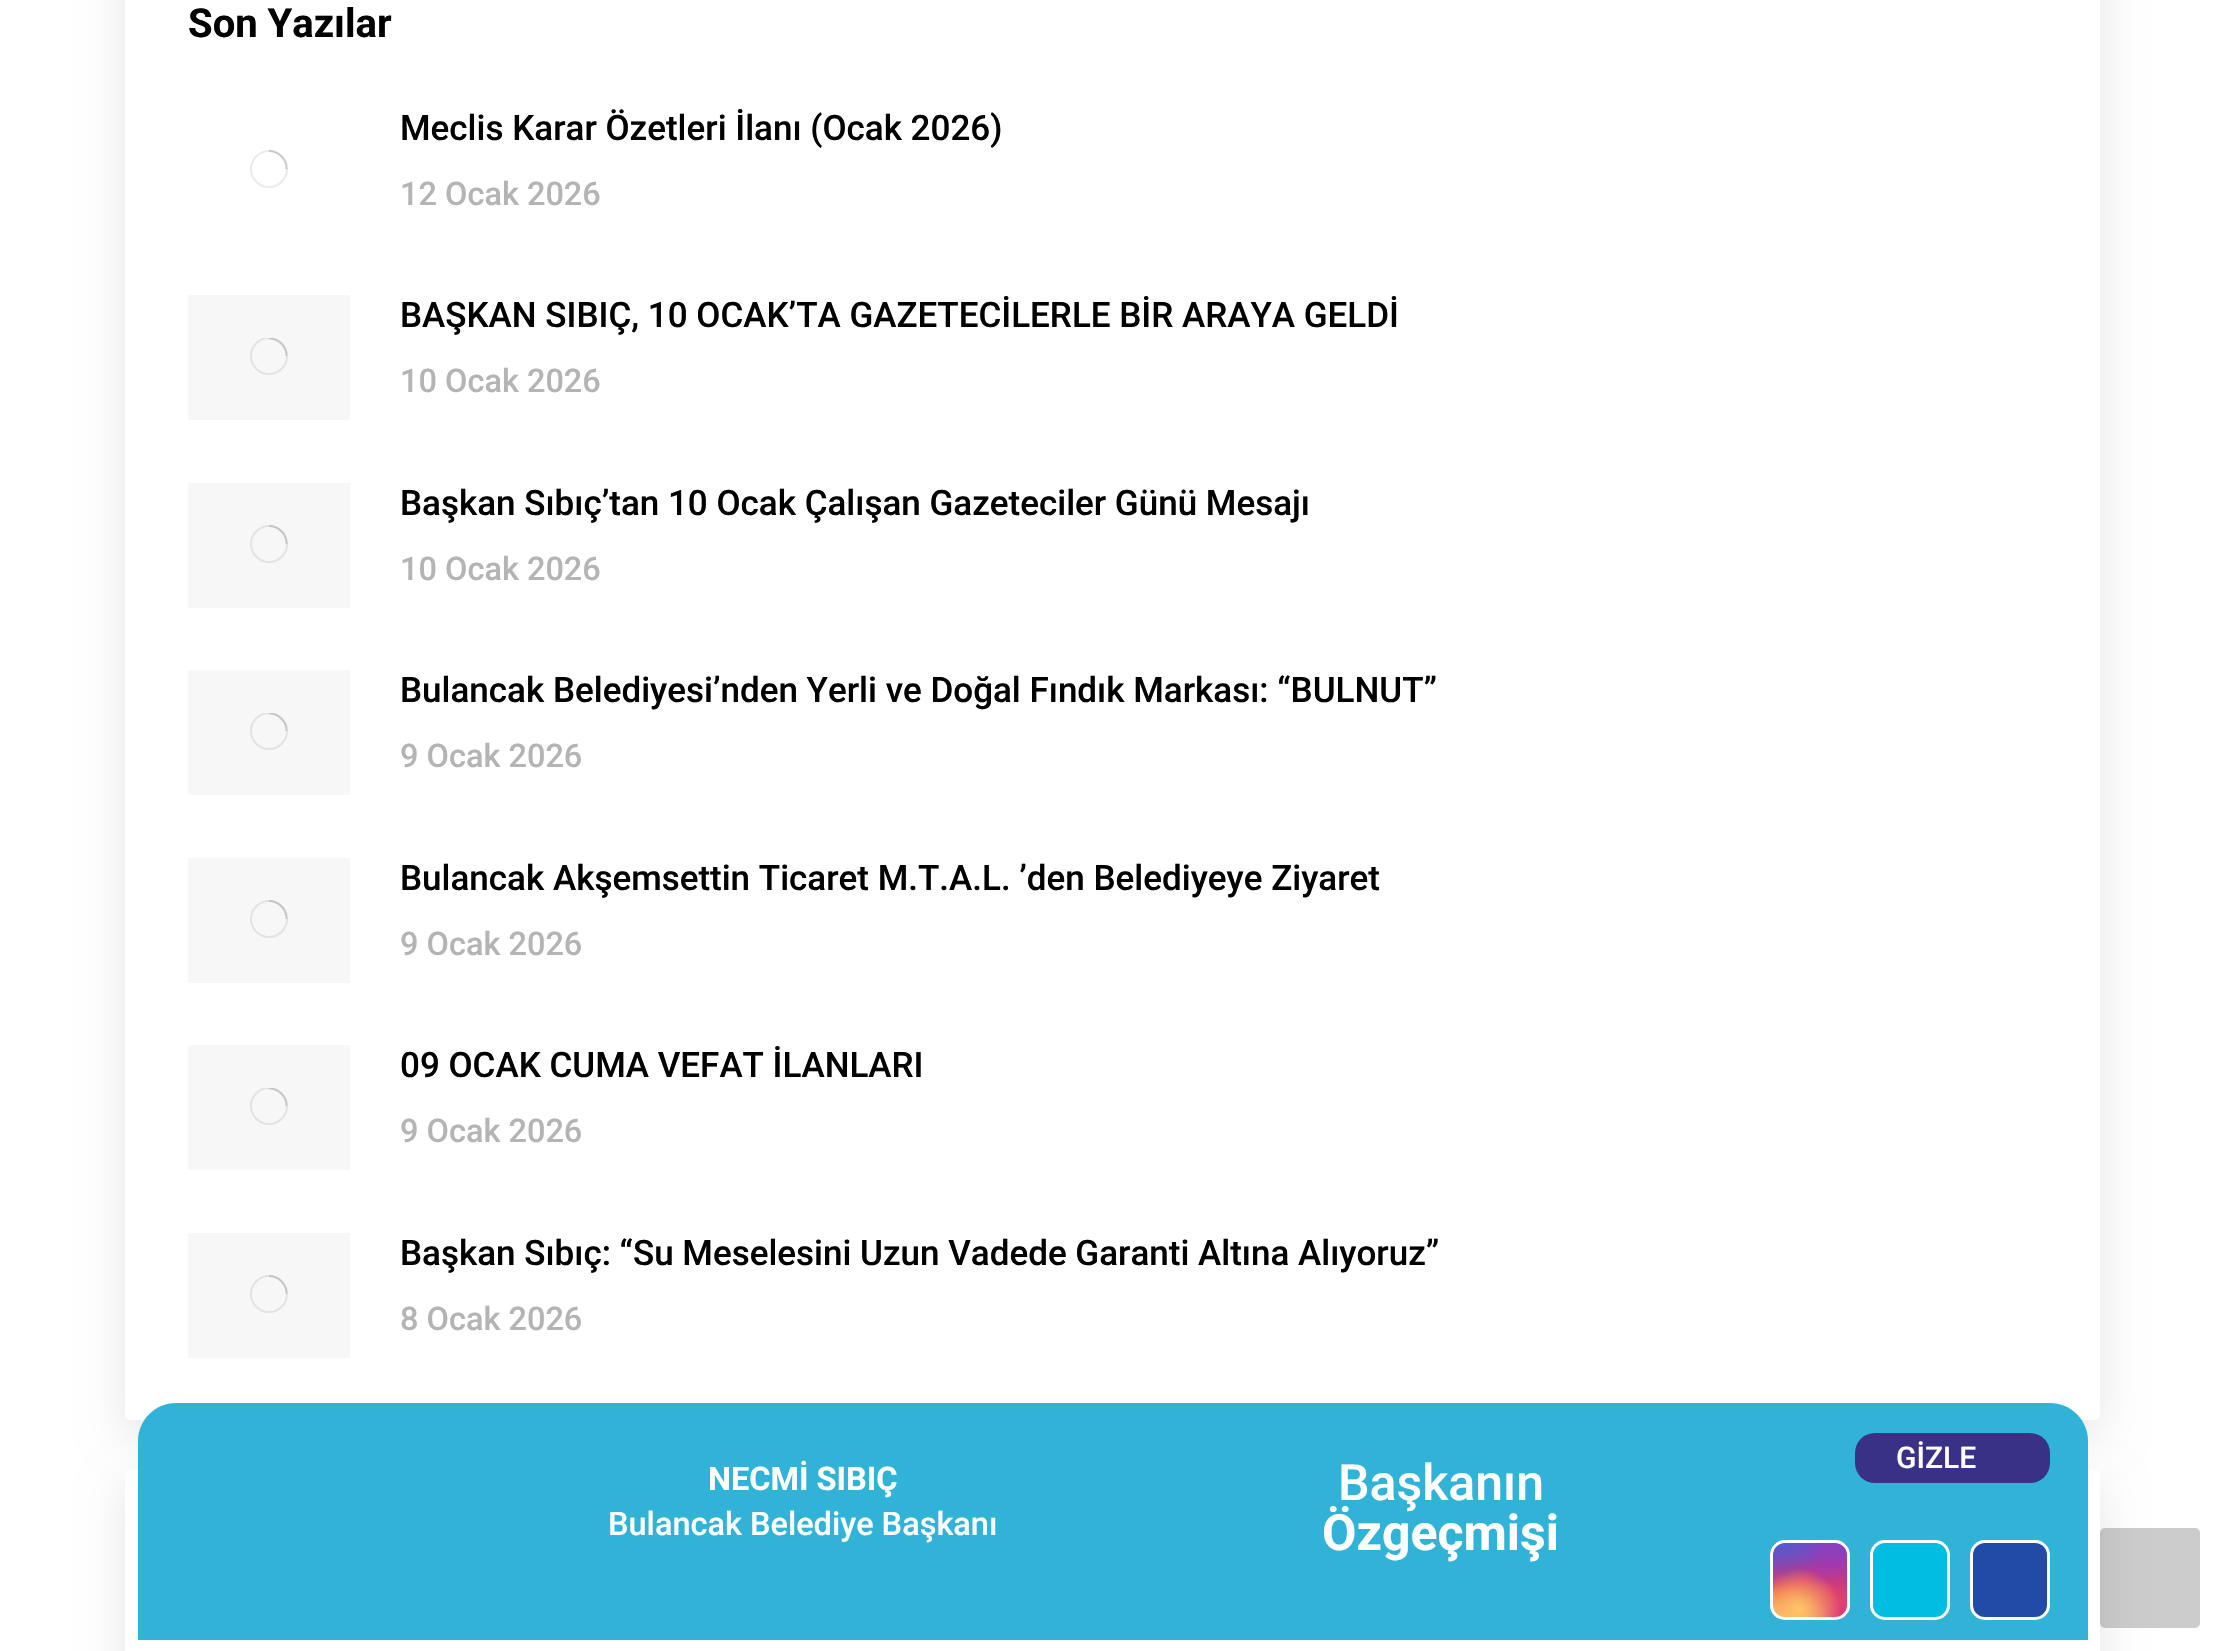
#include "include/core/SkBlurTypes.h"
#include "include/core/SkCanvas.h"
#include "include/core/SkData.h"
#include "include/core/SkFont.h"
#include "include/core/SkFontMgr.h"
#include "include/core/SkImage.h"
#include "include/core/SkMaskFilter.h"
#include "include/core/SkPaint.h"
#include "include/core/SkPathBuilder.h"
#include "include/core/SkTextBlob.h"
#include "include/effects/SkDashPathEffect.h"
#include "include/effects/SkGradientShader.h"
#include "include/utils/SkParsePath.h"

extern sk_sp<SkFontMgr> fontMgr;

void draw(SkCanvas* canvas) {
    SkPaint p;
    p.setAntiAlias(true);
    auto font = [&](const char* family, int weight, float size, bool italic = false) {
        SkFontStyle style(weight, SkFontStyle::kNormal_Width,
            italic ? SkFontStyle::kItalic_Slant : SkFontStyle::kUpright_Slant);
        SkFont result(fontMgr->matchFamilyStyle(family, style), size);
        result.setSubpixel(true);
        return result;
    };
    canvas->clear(0xFFFFFFFF);
    p.setColor(0x1A000000);
    p.setMaskFilter(SkMaskFilter::MakeBlur(kNormal_SkBlurStyle, 22.5f));
    canvas->drawRoundRect(SkRect::MakeLTRB(125, -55, 2100, 1435), 5, 5, p);
    p.setMaskFilter(nullptr);
    p.setColor(0xFFFFFFFF);
    canvas->drawRoundRect(SkRect::MakeLTRB(125, -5, 2100, 1420), 5, 5, p);
    auto font1 = font("Roboto", 700, 40);
    p.setColor(0xFF000000);
    canvas->drawString("Son Yazılar", 188, 37, font1, p);
    p.setStyle(SkPaint::kStroke_Style);
    p.setStrokeWidth(2);
    p.setColor(0xFFEAEAEA);
    canvas->drawCircle(269, 169, 18, p);
    p.setColor(0x40686868);
    canvas->drawPath(SkPathBuilder().moveTo(286.5f, 169).cubicTo(286.5f, 159, 278.5f, 151, 269, 151).detach(), p);
    auto font2 = font("Roboto", 500, 35);
    p.setStyle(SkPaint::kFill_Style);
    p.setColor(0xFF000000);
    canvas->drawString("Meclis Karar Özetleri İlanı (Ocak 2026)", 400, 140, font2, p);
    auto font3 = font("Roboto", 500, 32.5f);
    p.setColor(0xFFB4B4B4);
    canvas->drawString("12 Ocak 2026", 400, 205, font3, p);
    p.setColor(0xFFF7F7F7);
    canvas->drawRect(SkRect::MakeLTRB(188, 295, 350, 420), p);
    canvas->save();
    canvas->clipRect(SkRect::MakeLTRB(250, 338, 288, 375));
    p.setStyle(SkPaint::kStroke_Style);
    p.setColor(0xFFE3E3E3);
    canvas->drawCircle(269, 356, 18, p);
    p.setColor(0x40686868);
    canvas->drawPath(SkPathBuilder().moveTo(286.5f, 356).cubicTo(286.5f, 346.5f, 278.5f, 338.5f, 269, 338.5f).detach(), p);
    canvas->restore();
    p.setStyle(SkPaint::kFill_Style);
    p.setColor(0xFF000000);
    canvas->drawString("BAŞKAN SIBIÇ, 10 OCAK’TA GAZETECİLERLE BİR ARAYA GELDİ", 400, 327, font2, p);
    p.setColor(0xFFB4B4B4);
    canvas->drawString("10 Ocak 2026", 400, 392, font3, p);
    p.setColor(0xFFF7F7F7);
    canvas->drawRect(SkRect::MakeLTRB(188, 483, 350, 608), p);
    p.setStyle(SkPaint::kStroke_Style);
    p.setColor(0xFFE3E3E3);
    canvas->drawCircle(269, 544, 18, p);
    p.setColor(0x40686868);
    canvas->drawPath(SkPathBuilder().moveTo(286.5f, 544).cubicTo(286.5f, 534, 278.5f, 526, 269, 526).detach(), p);
    p.setStyle(SkPaint::kFill_Style);
    p.setColor(0xFF000000);
    canvas->drawString("Başkan Sıbıç’tan 10 Ocak Çalışan Gazeteciler Günü Mesajı", 400, 515, font2, p);
    p.setColor(0xFFB4B4B4);
    canvas->drawString("10 Ocak 2026", 400, 580, font3, p);
    p.setColor(0xFFF7F7F7);
    canvas->drawRect(SkRect::MakeLTRB(188, 670, 350, 795), p);
    canvas->save();
    canvas->clipRect(SkRect::MakeLTRB(250, 713, 288, 750));
    p.setStyle(SkPaint::kStroke_Style);
    p.setColor(0xFFE3E3E3);
    canvas->drawCircle(269, 731, 18, p);
    p.setColor(0x40686868);
    canvas->drawPath(SkPathBuilder().moveTo(286.5f, 731).cubicTo(286.5f, 721.5f, 278.5f, 713.5f, 269, 713.5f).detach(), p);
    canvas->restore();
    p.setStyle(SkPaint::kFill_Style);
    p.setColor(0xFF000000);
    canvas->drawString("Bulancak Belediyesi’nden Yerli ve Doğal Fındık Markası: “BULNUT”", 400, 702, font2, p);
    p.setColor(0xFFB4B4B4);
    canvas->drawString("9 Ocak 2026", 400, 767, font3, p);
    p.setColor(0xFFF7F7F7);
    canvas->drawRect(SkRect::MakeLTRB(188, 858, 350, 983), p);
    p.setStyle(SkPaint::kStroke_Style);
    p.setColor(0xFFE3E3E3);
    canvas->drawCircle(269, 919, 18, p);
    p.setColor(0x40686868);
    canvas->drawPath(SkPathBuilder().moveTo(286.5f, 919).cubicTo(286.5f, 909, 278.5f, 901, 269, 901).detach(), p);
    p.setStyle(SkPaint::kFill_Style);
    p.setColor(0xFF000000);
    canvas->drawString("Bulancak Akşemsettin Ticaret M.T.A.L. ’den Belediyeye Ziyaret", 400, 890, font2, p);
    p.setColor(0xFFB4B4B4);
    canvas->drawString("9 Ocak 2026", 400, 955, font3, p);
    p.setColor(0xFFF7F7F7);
    canvas->drawRect(SkRect::MakeLTRB(188, 1045, 350, 1170), p);
    canvas->save();
    canvas->clipRect(SkRect::MakeLTRB(250, 1088, 288, 1125));
    p.setStyle(SkPaint::kStroke_Style);
    p.setColor(0xFFE3E3E3);
    canvas->drawCircle(269, 1106, 18, p);
    p.setColor(0x40686868);
    canvas->drawPath(SkPathBuilder().moveTo(286.5f, 1106).cubicTo(286.5f, 1096.5f, 278.5f, 1088.5f, 269, 1088.5f).detach(), p);
    canvas->restore();
    p.setStyle(SkPaint::kFill_Style);
    p.setColor(0xFF000000);
    canvas->drawString("09 OCAK CUMA VEFAT İLANLARI", 400, 1077, font2, p);
    p.setColor(0xFFB4B4B4);
    canvas->drawString("9 Ocak 2026", 400, 1142, font3, p);
    p.setColor(0xFFF7F7F7);
    canvas->drawRect(SkRect::MakeLTRB(188, 1233, 350, 1358), p);
    p.setStyle(SkPaint::kStroke_Style);
    p.setColor(0xFFE3E3E3);
    canvas->drawCircle(269, 1294, 18, p);
    p.setColor(0x40686868);
    canvas->drawPath(SkPathBuilder().moveTo(286.5f, 1294).cubicTo(286.5f, 1284, 278.5f, 1276, 269, 1276).detach(), p);
    p.setStyle(SkPaint::kFill_Style);
    p.setColor(0xFF000000);
    canvas->drawString("Başkan Sıbıç: “Su Meselesini Uzun Vadede Garanti Altına Alıyoruz”", 400, 1265, font2, p);
    p.setColor(0xFFB4B4B4);
    canvas->drawString("8 Ocak 2026", 400, 1330, font3, p);
    canvas->save();
    canvas->clipPath(SkPathBuilder(SkPathFillType::kEvenOdd).moveTo(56, 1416).lineTo(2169, 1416).lineTo(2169, 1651).lineTo(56, 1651).close().moveTo(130, 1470).lineTo(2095, 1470).cubicTo(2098, 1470, 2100, 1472, 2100, 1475).lineTo(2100, 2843).cubicTo(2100, 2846, 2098, 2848, 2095, 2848).lineTo(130, 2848).cubicTo(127, 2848, 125, 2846, 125, 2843).lineTo(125, 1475).cubicTo(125, 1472, 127, 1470, 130, 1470).close().detach(), true);
    p.setColor(0x1A000000);
    p.setMaskFilter(SkMaskFilter::MakeBlur(kNormal_SkBlurStyle, 22.5f));
    canvas->drawRoundRect(SkRect::MakeLTRB(125, 1485, 2100, 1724), 5, 5, p);
    p.setMaskFilter(nullptr);
    canvas->restore();
    p.setColor(0xFF31B3D7);
    canvas->drawPath(SkPathBuilder().moveTo(176, 1403).lineTo(2050, 1403).cubicTo(2071, 1403, 2088, 1420, 2088, 1441).lineTo(2088, 1640).lineTo(138, 1640).lineTo(138, 1441).cubicTo(138, 1420, 155, 1403, 176, 1403).close().detach(), p);
    p.setColor(0xFF393185);
    canvas->drawRoundRect(SkRect::MakeLTRB(1855, 1433, 2050, 1483), 20, 20, p);
    auto font4 = font("Roboto", 500, 30);
    p.setColor(0xFFFFFFFF);
    canvas->drawString("GİZLE", 1896, 1468, font4, p);
    canvas->save();
    canvas->clipPath(SkPathBuilder().moveTo(1785, 1540).lineTo(1835, 1540).cubicTo(1843.5f, 1540, 1850, 1546.5f, 1850, 1555).lineTo(1850, 1605).cubicTo(1850, 1613.5f, 1843.5f, 1620, 1835, 1620).lineTo(1785, 1620).cubicTo(1776.5f, 1620, 1770, 1613.5f, 1770, 1605).lineTo(1770, 1555).cubicTo(1770, 1546.5f, 1776.5f, 1540, 1785, 1540).close().detach(), true);
    {
        const SkColor colors[] = {0xFF6559CA, 0xFFBC318F, 0xFFE33F5F, 0xFFF77638, 0xFFFEC66D};
        const float stops[] = {0, 0.3f, 0.5f, 0.7f, 1};
        const SkPoint ends[] = {{1810, 1543}, {1810, 1618}};
        p.setShader(SkGradientShader::MakeLinear(ends, colors, stops, 5, SkTileMode::kClamp));
        p.setAlpha(255);
    }
    canvas->drawRect(SkRect::MakeLTRB(1770, 1543, 1850, 1618), p);
    {
        const SkColor colors[] = {0xFFD9317A, 0x00D9317A};
        const float stops[] = {0, 1};
        p.setShader(SkGradientShader::MakeRadial({1848, 1618}, 106, colors, stops, 2, SkTileMode::kClamp));
        p.setAlpha(255);
    }
    canvas->drawRect(SkRect::MakeLTRB(1773, 1543, 1848, 1618), p);
    {
        const SkColor colors[] = {0xFF893DC2, 0x00893DC2};
        const float stops[] = {0, 0.5f};
        SkMatrix m = SkMatrix::Translate(1818, 1528).preScale(64, 127);
        p.setShader(SkGradientShader::MakeRadial({0, 0}, 1, colors, stops, 2, SkTileMode::kClamp, 0, &m));
        p.setAlpha(255);
    }
    canvas->drawRect(SkRect::MakeLTRB(1788, 1543, 1848, 1590), p);
    {
        const SkColor colors[] = {0xFF893DC2, 0x00893DC2};
        const float stops[] = {0, 0.5f};
        p.setShader(SkGradientShader::MakeRadial({1848, 1543}, 106, colors, stops, 2, SkTileMode::kClamp));
        p.setAlpha(255);
    }
    canvas->drawRect(SkRect::MakeLTRB(1796, 1543, 1848, 1595), p);
    {
        const SkColor colors[] = {0xFF5258CF, 0x005258CF};
        const float stops[] = {0, 0.5f};
        SkMatrix m = SkMatrix::Translate(1788, 1505).preScale(85, 159);
        p.setShader(SkGradientShader::MakeRadial({0, 0}, 1, colors, stops, 2, SkTileMode::kClamp, 0, &m));
        p.setAlpha(255);
    }
    canvas->drawRect(SkRect::MakeLTRB(1773, 1543, 1824, 1583), p);
    {
        const SkColor colors[] = {0xFF5258CF, 0x005258CF};
        const float stops[] = {0, 0.5f};
        SkMatrix m = SkMatrix::Translate(1773, 1524).preScale(106, 133);
        p.setShader(SkGradientShader::MakeRadial({0, 0}, 1, colors, stops, 2, SkTileMode::kClamp, 0, &m));
        p.setAlpha(255);
    }
    canvas->drawRect(SkRect::MakeLTRB(1773, 1543, 1822, 1589), p);
    {
        const SkColor colors[] = {0xFFFEC564, 0x00FEC564};
        const float stops[] = {0, 0.5f};
        p.setShader(SkGradientShader::MakeRadial({1773, 1648}, 129, colors, stops, 2, SkTileMode::kClamp));
        p.setAlpha(255);
    }
    canvas->drawRect(SkRect::MakeLTRB(1773, 1585, 1828, 1618), p);
    {
        const SkColor colors[] = {0xFFFEC564, 0x00FEC564};
        const float stops[] = {0, 0.5f};
        p.setShader(SkGradientShader::MakeRadial({1799, 1610}, 83, colors, stops, 2, SkTileMode::kClamp));
        p.setAlpha(255);
    }
    canvas->drawRect(SkRect::MakeLTRB(1773, 1569, 1840, 1618), p);
    canvas->restore();
    p.setStyle(SkPaint::kStroke_Style);
    p.setStrokeWidth(3);
    p.setShader(nullptr);
    p.setColor(0xFFFFFFFF);
    canvas->drawRoundRect(SkRect::MakeLTRB(1771.5f, 1541.5f, 1848.5f, 1618.5f), 13.5f, 13.5f, p);
    p.setStyle(SkPaint::kFill_Style);
    p.setColor(0xFF01BEE0);
    canvas->drawRoundRect(SkRect::MakeLTRB(1871.5f, 1541.5f, 1948.5f, 1618.5f), 13.5f, 13.5f, p);
    p.setStyle(SkPaint::kStroke_Style);
    p.setColor(0xFFFFFFFF);
    canvas->drawRoundRect(SkRect::MakeLTRB(1871.5f, 1541.5f, 1948.5f, 1618.5f), 13.5f, 13.5f, p);
    p.setStyle(SkPaint::kFill_Style);
    p.setColor(0xFF224BA8);
    canvas->drawRoundRect(SkRect::MakeLTRB(1971.5f, 1541.5f, 2048.5f, 1618.5f), 13.5f, 13.5f, p);
    p.setStyle(SkPaint::kStroke_Style);
    p.setColor(0xFFFFFFFF);
    canvas->drawRoundRect(SkRect::MakeLTRB(1971.5f, 1541.5f, 2048.5f, 1618.5f), 13.5f, 13.5f, p);
    auto font5 = font("Roboto", 700, 32.5f);
    p.setStyle(SkPaint::kFill_Style);
    canvas->drawString("NECMİ SIBIÇ", 708, 1490, font5, p);
    canvas->drawString("Bulancak Belediye Başkanı", 608, 1535, font3, p);
    auto font6 = font("Roboto", 500, 50);
    canvas->drawString("Başkanın", 1338, 1500, font6, p);
    auto font7 = font("Roboto", 700, 50);
    canvas->drawString("Özgeçmişi", 1322, 1550, font7, p);
    p.setColor(0x33000000);
    canvas->drawRoundRect(SkRect::MakeLTRB(2100, 1528, 2200, 1628), 5, 5, p);
}
